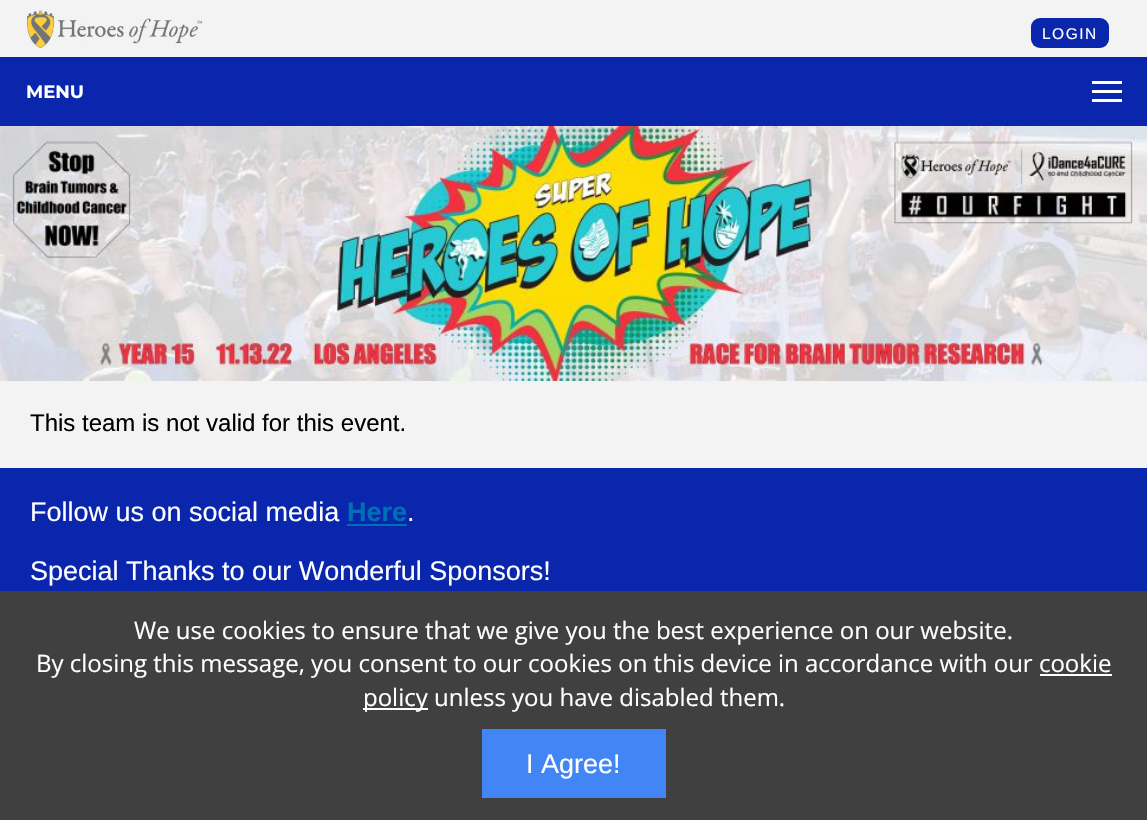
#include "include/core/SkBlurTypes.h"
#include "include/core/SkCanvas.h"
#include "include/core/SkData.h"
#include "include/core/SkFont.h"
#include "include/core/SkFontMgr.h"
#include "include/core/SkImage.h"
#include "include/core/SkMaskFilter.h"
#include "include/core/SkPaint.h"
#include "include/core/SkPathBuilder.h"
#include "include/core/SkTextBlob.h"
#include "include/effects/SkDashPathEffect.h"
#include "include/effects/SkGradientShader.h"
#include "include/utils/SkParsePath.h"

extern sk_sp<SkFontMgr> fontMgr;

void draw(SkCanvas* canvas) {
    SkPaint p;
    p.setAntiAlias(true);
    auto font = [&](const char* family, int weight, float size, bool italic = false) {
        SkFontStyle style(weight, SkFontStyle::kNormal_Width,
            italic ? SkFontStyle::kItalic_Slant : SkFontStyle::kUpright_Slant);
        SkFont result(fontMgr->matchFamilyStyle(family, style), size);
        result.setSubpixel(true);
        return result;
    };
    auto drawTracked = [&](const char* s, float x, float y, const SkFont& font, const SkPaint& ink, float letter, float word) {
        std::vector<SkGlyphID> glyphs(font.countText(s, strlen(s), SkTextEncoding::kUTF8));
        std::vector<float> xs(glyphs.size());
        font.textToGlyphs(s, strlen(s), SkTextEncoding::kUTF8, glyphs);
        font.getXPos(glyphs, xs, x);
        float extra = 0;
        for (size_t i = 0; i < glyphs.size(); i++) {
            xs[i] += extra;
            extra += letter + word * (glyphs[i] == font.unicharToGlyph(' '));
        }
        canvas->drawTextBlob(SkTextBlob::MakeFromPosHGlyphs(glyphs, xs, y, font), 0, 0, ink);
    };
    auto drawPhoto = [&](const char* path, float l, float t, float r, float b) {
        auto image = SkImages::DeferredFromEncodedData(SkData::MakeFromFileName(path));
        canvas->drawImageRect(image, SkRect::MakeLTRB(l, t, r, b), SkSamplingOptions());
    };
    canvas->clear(0xFFF3F3F3);
    drawPhoto("media/1.png", 27, 10, 202, 48);
    p.setColor(0xFF0926AD);
    canvas->drawRoundRect(SkRect::MakeLTRB(1031, 18, 1109, 48), 9, 9, p);
    auto font1 = font("Liberation Sans", 400, 15.5f);
    p.setColor(0xFFFFFFFF);
    drawTracked("LOGIN", 1042, 39, font1, p, 1.5f, 0);
    p.setColor(0xFF0926AD);
    canvas->drawRect(SkRect::MakeLTRB(0, 57, 1147, 126), p);
    p.setColor(0xFFFFFFFF);
    canvas->drawRect(SkRect::MakeLTRB(1092, 81, 1122, 84), p);
    auto font2 = font("Montserrat", 700, 18);
    canvas->drawString("MENU", 26, 98, font2, p);
    canvas->drawRect(SkRect::MakeLTRB(1092, 90, 1122, 93), p);
    canvas->drawRect(SkRect::MakeLTRB(1092, 99, 1122, 102), p);
    drawPhoto("media/2.png", 0, 126, 1147, 381);
    auto font3 = font("Liberation Sans", 400, 24);
    p.setColor(0xFF000000);
    canvas->drawString("This team is not valid for this event.", 30, 431, font3, p);
    p.setColor(0xFF0926AD);
    canvas->drawRect(SkRect::MakeLTRB(0, 468, 1147, 591), p);
    auto font4 = font("Liberation Sans", 400, 27);
    p.setColor(0xFFFFFFFF);
    canvas->drawString("Follow us on social media", 30, 521, font4, p);
    auto font5 = font("Liberation Sans", 700, 27);
    p.setColor(0xFF006FB4);
    canvas->drawString("Here", 347, 521, font5, p);
    p.setColor(0xFFFFFFFF);
    canvas->drawString(".", 407, 521, font4, p);
    p.setColor(0xFF006FB4);
    canvas->drawRect(SkRect::MakeLTRB(347, 524, 407, 526), p);
    p.setColor(0xFFFFFFFF);
    canvas->drawString("Special Thanks to our Wonderful Sponsors!", 30, 580, font4, p);
    p.setColor(0xFF404040);
    canvas->drawRect(SkRect::MakeLTRB(0, 591, 1147, 820), p);
    auto font6 = font("Open Sans", 400, 24);
    p.setColor(0xFFFFFFFF);
    canvas->drawString("We use cookies to ensure that we give you the best experience on our website.", 134, 639, font6, p);
    canvas->drawString("By closing this message, you consent to our cookies on this device in accordance with our cookie", 36, 672, font6, p);
    canvas->drawRect(SkRect::MakeLTRB(363, 708, 428, 710), p);
    canvas->drawString("policy unless you have disabled them.", 363, 706, font6, p);
    canvas->drawRect(SkRect::MakeLTRB(1040, 674, 1112, 676), p);
    p.setColor(0xFF4285F4);
    canvas->drawRect(SkRect::MakeLTRB(482, 729, 666, 798), p);
    p.setColor(0xFFFFFFFF);
    canvas->drawString("I Agree!", 526, 773, font4, p);
}
